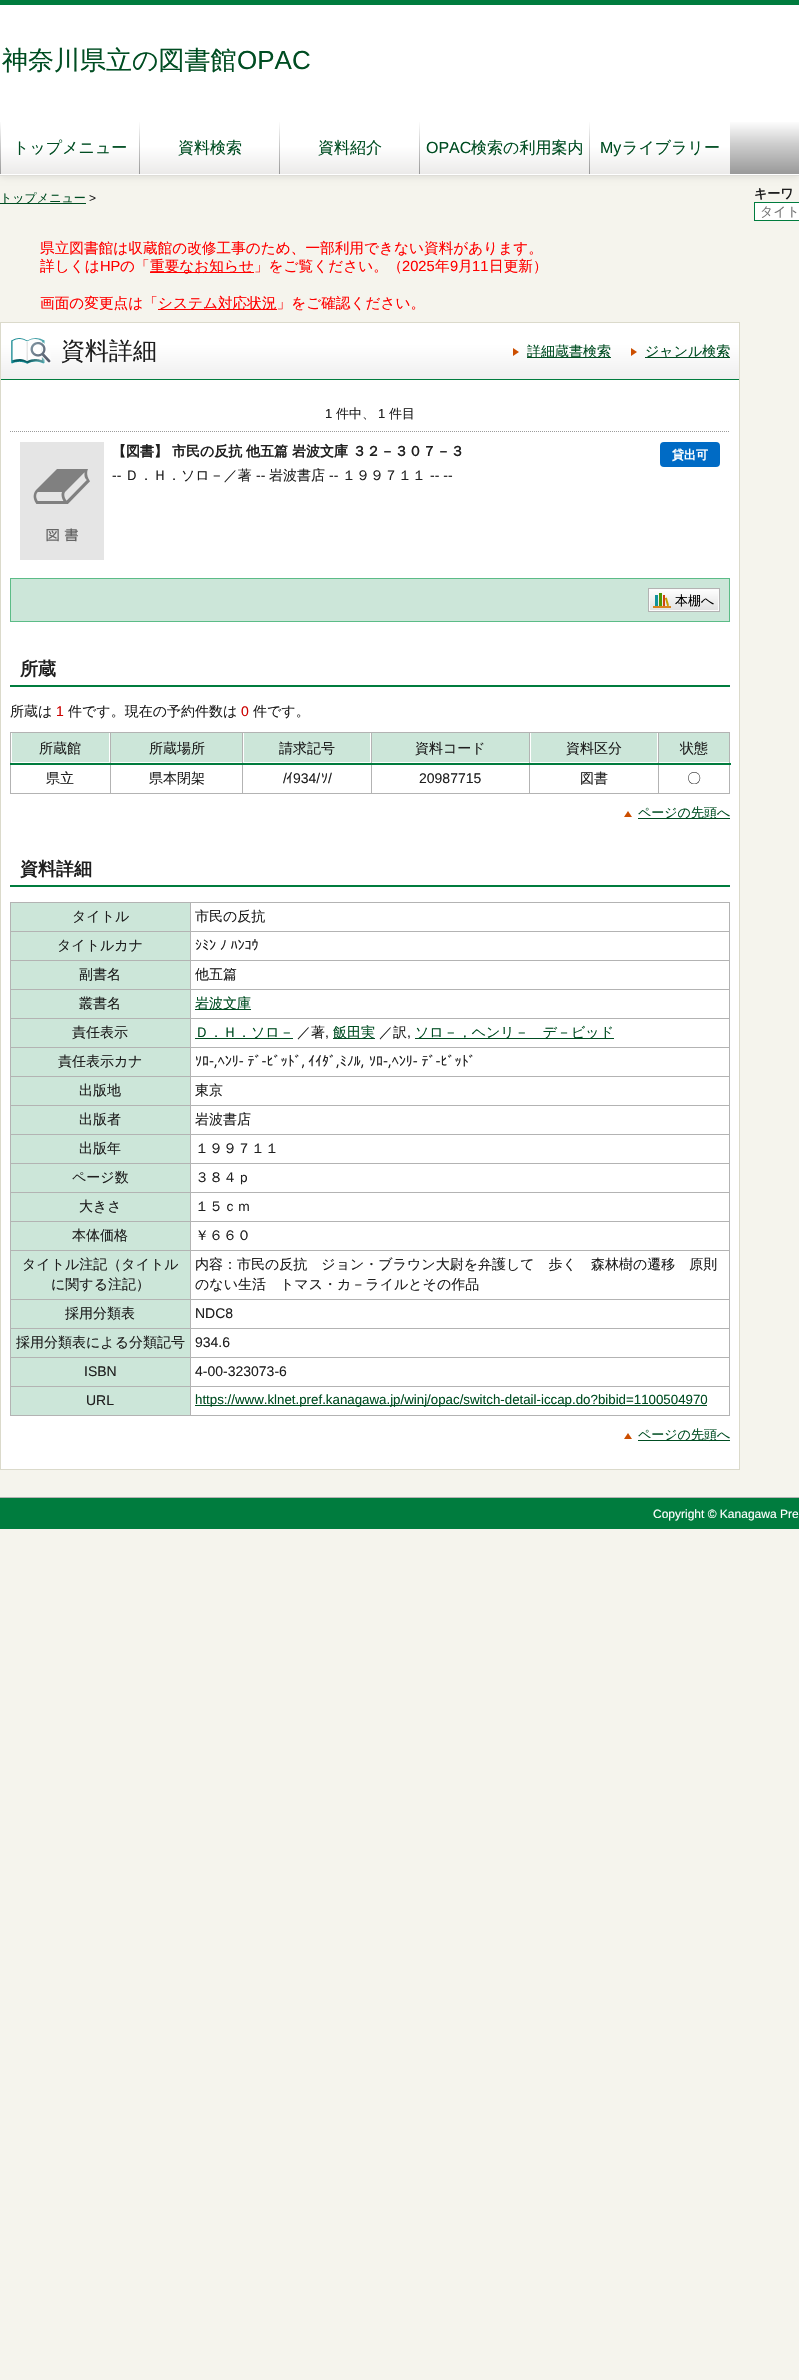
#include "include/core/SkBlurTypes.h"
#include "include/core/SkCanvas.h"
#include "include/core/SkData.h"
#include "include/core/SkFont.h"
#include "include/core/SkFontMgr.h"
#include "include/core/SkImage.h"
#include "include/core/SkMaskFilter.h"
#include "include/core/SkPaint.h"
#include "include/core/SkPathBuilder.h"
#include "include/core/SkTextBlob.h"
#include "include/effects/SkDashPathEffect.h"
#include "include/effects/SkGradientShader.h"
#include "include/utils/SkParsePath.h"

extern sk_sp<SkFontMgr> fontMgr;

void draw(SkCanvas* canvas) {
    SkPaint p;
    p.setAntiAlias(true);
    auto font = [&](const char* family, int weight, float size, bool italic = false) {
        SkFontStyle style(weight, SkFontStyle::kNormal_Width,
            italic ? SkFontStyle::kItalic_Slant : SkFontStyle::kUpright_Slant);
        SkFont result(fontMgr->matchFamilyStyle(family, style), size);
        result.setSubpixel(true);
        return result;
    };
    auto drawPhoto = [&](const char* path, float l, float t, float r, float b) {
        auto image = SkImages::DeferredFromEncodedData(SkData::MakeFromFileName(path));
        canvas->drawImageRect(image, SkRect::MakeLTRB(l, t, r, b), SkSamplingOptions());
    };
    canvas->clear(0xFFF5F4ED);
    p.setColor(0x21000000);
    p.setMaskFilter(SkMaskFilter::MakeBlur(kNormal_SkBlurStyle, 3.5f));
    canvas->drawRect(SkRect::MakeLTRB(0, 0, 799, 176), p);
    p.setMaskFilter(nullptr);
    {
        const struct { float l, t, r, b; SkColor color; } items[] = {
            {0, 5, 799, 175, 0xFFFFFFFF},
            {0, 0, 799, 5, 0xFF007C3E},
            {0, 175, 799, 176, 0xFFDEDDD8},
        };
        for (auto [l, t, r, b, color] : items) {
            p.setColor(color);
            canvas->drawRect(SkRect::MakeLTRB(l, t, r, b), p);
        }
    }
    auto font1 = font("WenQuanYi Zen Hei", 500, 26);
    p.setColor(0xFF004D22);
    canvas->drawString("神奈川県立の図書館", 2, 69, font1, p);
    auto font2 = font("Liberation Sans", 400, 26);
    canvas->drawString("OPAC", 237, 69, font2, p);
    {
        const SkColor colors[] = {0xFF999999, 0xFFCFCFCF, 0xFFFFFFFF, 0xFFFFFFFF};
        const float stops[] = {0, 0.55f, 0.95f, 1};
        const SkPoint ends[] = {{492, 174}, {492, 118}};
        p.setShader(SkGradientShader::MakeLinear(ends, colors, stops, 4, SkTileMode::kClamp));
        p.setAlpha(255);
    }
    canvas->drawRect(SkRect::MakeLTRB(0, 122, 799, 174), p);
    {
        const SkColor colors[] = {0xFFEBEAE9, 0xFFFFFFFF, 0xFFFFFFFF};
        const float stops[] = {0, 0.5f, 1};
        const SkPoint ends[] = {{70, 174}, {70, 118}};
        p.setShader(SkGradientShader::MakeLinear(ends, colors, stops, 3, SkTileMode::kClamp));
        p.setAlpha(255);
    }
    canvas->drawRect(SkRect::MakeLTRB(1, 122, 139, 174), p);
    auto font3 = font("WenQuanYi Zen Hei", 500, 16);
    p.setShader(nullptr);
    p.setColor(0xFF004D22);
    canvas->drawString("トップメニュー", 13, 153, font3, p);
    {
        const SkColor colors[] = {0xFFEBEAE9, 0xFFFFFFFF, 0xFFFFFFFF};
        const float stops[] = {0, 0.5f, 1};
        const SkPoint ends[] = {{210, 174}, {210, 118}};
        p.setShader(SkGradientShader::MakeLinear(ends, colors, stops, 3, SkTileMode::kClamp));
        p.setAlpha(255);
    }
    canvas->drawRect(SkRect::MakeLTRB(140, 122, 279, 174), p);
    p.setShader(nullptr);
    p.setColor(0xFF004D22);
    canvas->drawString("資料検索", 178, 153, font3, p);
    {
        const SkColor colors[] = {0xFFEBEAE9, 0xFFFFFFFF, 0xFFFFFFFF};
        const float stops[] = {0, 0.5f, 1};
        const SkPoint ends[] = {{350, 174}, {350, 118}};
        p.setShader(SkGradientShader::MakeLinear(ends, colors, stops, 3, SkTileMode::kClamp));
        p.setAlpha(255);
    }
    canvas->drawRect(SkRect::MakeLTRB(280, 122, 419, 174), p);
    p.setShader(nullptr);
    p.setColor(0xFF004D22);
    canvas->drawString("資料紹介", 318, 153, font3, p);
    {
        const SkColor colors[] = {0xFFEBEAE9, 0xFFFFFFFF, 0xFFFFFFFF};
        const float stops[] = {0, 0.5f, 1};
        const SkPoint ends[] = {{505, 174}, {505, 118}};
        p.setShader(SkGradientShader::MakeLinear(ends, colors, stops, 3, SkTileMode::kClamp));
        p.setAlpha(255);
    }
    canvas->drawRect(SkRect::MakeLTRB(420, 122, 589, 174), p);
    auto font4 = font("Liberation Sans", 400, 16);
    p.setShader(nullptr);
    p.setColor(0xFF004D22);
    canvas->drawString("OPAC", 426, 153, font4, p);
    canvas->drawString("検索の利用案内", 471, 153, font3, p);
    {
        const SkColor colors[] = {0xFFEBEAE9, 0xFFFFFFFF, 0xFFFFFFFF};
        const float stops[] = {0, 0.5f, 1};
        const SkPoint ends[] = {{660, 174}, {660, 118}};
        p.setShader(SkGradientShader::MakeLinear(ends, colors, stops, 3, SkTileMode::kClamp));
        p.setAlpha(255);
    }
    canvas->drawRect(SkRect::MakeLTRB(590, 122, 730, 174), p);
    p.setShader(nullptr);
    p.setColor(0xFF004D22);
    canvas->drawString("My", 600, 153, font4, p);
    canvas->drawString("ライブラリー", 622, 153, font3, p);
    canvas->drawRect(SkRect::MakeLTRB(0, 203, 86, 204), p);
    auto font5 = font("WenQuanYi Zen Hei", 500, 12);
    canvas->drawString("トップメニュー", 0, 202, font5, p);
    auto font6 = font("Liberation Sans", 400, 12);
    p.setColor(0xFF1F1F1F);
    canvas->drawString(">", 89, 202, font6, p);
    auto font7 = font("WenQuanYi Zen Hei", 700, 13);
    canvas->drawString("キーワ", 754, 198, font7, p);
    p.setColor(0xFFFFFFFF);
    canvas->drawRect(SkRect::MakeLTRB(754.5f, 202.5f, 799.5f, 220.5f), p);
    p.setStyle(SkPaint::kStroke_Style);
    p.setStrokeWidth(1);
    p.setColor(0xFF007C3E);
    canvas->drawRect(SkRect::MakeLTRB(754.5f, 202.5f, 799.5f, 220.5f), p);
    auto font8 = font("WenQuanYi Zen Hei", 500, 13);
    p.setStyle(SkPaint::kFill_Style);
    p.setColor(0xFF757575);
    canvas->drawString("タイト", 760, 216, font8, p);
    auto font9 = font("WenQuanYi Zen Hei", 500, 14.65f);
    p.setColor(0xFFFF0000);
    canvas->drawString("県立図書館は収蔵館の改修工事のため、一部利用できない資料があります。", 40, 253, font9, p);
    canvas->drawString("詳しくは", 40, 271, font9, p);
    auto font10 = font("Liberation Sans", 400, 14.65f);
    canvas->drawString("HP", 100, 271, font10, p);
    canvas->drawString("の「", 120, 271, font9, p);
    canvas->drawRect(SkRect::MakeLTRB(150, 272, 254, 273), p);
    canvas->drawString("重要なお知らせ」をご覧ください。（", 150, 271, font9, p);
    canvas->drawString("2025", 402, 271, font10, p);
    canvas->drawString("年", 435, 271, font9, p);
    canvas->drawString("9", 450, 271, font10, p);
    canvas->drawString("月", 458, 271, font9, p);
    canvas->drawString("11", 472, 271, font10, p);
    canvas->drawString("日更新）", 489, 271, font9, p);
    canvas->drawString("画面の変更点は「", 40, 308, font9, p);
    canvas->drawRect(SkRect::MakeLTRB(158, 309, 277, 310), p);
    canvas->drawString("システム対応状況」をご確認ください。", 158, 308, font9, p);
    p.setColor(0xFFFFFFFF);
    canvas->drawRect(SkRect::MakeLTRB(1, 380, 739, 1469), p);
    p.setStyle(SkPaint::kStroke_Style);
    p.setColor(0xFFDBDACB);
    canvas->drawRect(SkRect::MakeLTRB(0.5f, 322.5f, 739.5f, 1469.5f), p);
    p.setStyle(SkPaint::kFill_Style);
    {
        const SkColor colors[] = {0xFFEBEBEB, 0xFFEFEFEF, 0xFFFFFFFF, 0xFFFFFFFF};
        const float stops[] = {0, 0, 0.62f, 1};
        const SkPoint ends[] = {{370, 379}, {370, 323}};
        p.setShader(SkGradientShader::MakeLinear(ends, colors, stops, 4, SkTileMode::kClamp));
        p.setAlpha(255);
    }
    canvas->drawRect(SkRect::MakeLTRB(1, 323, 739, 379), p);
    p.setShader(nullptr);
    p.setColor(0xFF007C3E);
    canvas->drawRect(SkRect::MakeLTRB(1, 379, 739, 380), p);
    drawPhoto("media/1.png", 11, 338, 51, 364);
    auto font11 = font("WenQuanYi Zen Hei", 500, 24);
    p.setColor(0xFF1F1F1F);
    canvas->drawString("資料詳細", 61, 359, font11, p);
    p.setColor(0xFFCC4E00);
    canvas->drawPath(SkPathBuilder().moveTo(513, 356).lineTo(513, 348).lineTo(519, 352).close().detach(), p);
    p.setColor(0xFF004D22);
    canvas->drawRect(SkRect::MakeLTRB(527, 357, 611, 358), p);
    auto font12 = font("WenQuanYi Zen Hei", 500, 14);
    canvas->drawString("詳細蔵書検索", 527, 356, font12, p);
    p.setColor(0xFFCC4E00);
    canvas->drawPath(SkPathBuilder().moveTo(631, 356).lineTo(631, 348).lineTo(637, 352).close().detach(), p);
    p.setColor(0xFF004D22);
    canvas->drawRect(SkRect::MakeLTRB(645, 357, 730, 358), p);
    canvas->drawString("ジャンル検索", 645, 356, font12, p);
    p.setStyle(SkPaint::kStroke_Style);
    p.setColor(0xFF9B9B9B);
    p.setPathEffect(SkDashPathEffect::Make({{1, 1}}, 0));
    canvas->drawPath(SkPathBuilder().moveTo(10, 431.5f).lineTo(730, 431.5f).detach(), p);
    p.setPathEffect(nullptr);
    auto font13 = font("Liberation Sans", 400, 13);
    p.setStyle(SkPaint::kFill_Style);
    p.setColor(0xFF1F1F1F);
    canvas->drawString("1", 325, 418, font13, p);
    canvas->drawString("件中、", 336, 418, font8, p);
    canvas->drawString("1", 378, 418, font13, p);
    canvas->drawString("件目", 389, 418, font8, p);
    p.setStyle(SkPaint::kStroke_Style);
    p.setColor(0xFFE5E5E5);
    canvas->drawRect(SkRect::MakeLTRB(20.5f, 442.5f, 103.5f, 559.5f), p);
    drawPhoto("media/2.png", 21, 443, 103, 559);
    auto font14 = font("WenQuanYi Zen Hei", 700, 14);
    p.setStyle(SkPaint::kFill_Style);
    p.setColor(0xFF1F1F1F);
    {
        const struct { const char* s; float x, y; } items[] = {
            {"【図書】", 112, 456},
            {"市民の反抗", 172, 456},
            {"他五篇", 246, 456},
            {"岩波文庫 ３２－３０７－３", 292, 456},
        };
        for (auto [s, x, y] : items) {
            canvas->drawString(s, x, y, font14, p);
        }
    }
    p.setColor(0xFF006BC5);
    canvas->drawRoundRect(SkRect::MakeLTRB(661, 443, 719, 466), 3, 3, p);
    p.setStyle(SkPaint::kStroke_Style);
    p.setStrokeWidth(2);
    canvas->drawRoundRect(SkRect::MakeLTRB(661, 443, 719, 466), 3, 3, p);
    auto font15 = font("WenQuanYi Zen Hei", 700, 12);
    p.setStyle(SkPaint::kFill_Style);
    p.setColor(0xFFFFFFFF);
    canvas->drawString("貸出可", 672, 459, font15, p);
    auto font16 = font("Liberation Sans", 400, 14);
    p.setColor(0xFF1F1F1F);
    canvas->drawString("--", 112, 480, font16, p);
    canvas->drawString("Ｄ．Ｈ．ソロ－／著", 125, 480, font12, p);
    canvas->drawString("--", 256, 480, font16, p);
    canvas->drawString("岩波書店", 269, 480, font12, p);
    canvas->drawString("--", 329, 480, font16, p);
    canvas->drawString("１９９７１１", 342, 480, font12, p);
    canvas->drawString("-- --", 430, 480, font16, p);
    p.setColor(0xFFCCE6D9);
    canvas->drawRect(SkRect::MakeLTRB(10.5f, 578.5f, 729.5f, 621.5f), p);
    p.setStyle(SkPaint::kStroke_Style);
    p.setStrokeWidth(1);
    p.setColor(0xFF5CBC87);
    canvas->drawRect(SkRect::MakeLTRB(10.5f, 578.5f, 729.5f, 621.5f), p);
    p.setStyle(SkPaint::kFill_Style);
    {
        const SkColor colors[] = {0xFFE0E0E0, 0xFFFFFFFF};
        const float stops[] = {0, 1};
        const SkPoint ends[] = {{684, 611}, {684, 589}};
        p.setShader(SkGradientShader::MakeLinear(ends, colors, stops, 2, SkTileMode::kClamp));
        p.setAlpha(255);
    }
    canvas->drawRect(SkRect::MakeLTRB(650, 590, 718, 610), p);
    p.setStyle(SkPaint::kStroke_Style);
    p.setShader(nullptr);
    p.setColor(0xFFFBFBFB);
    canvas->drawRect(SkRect::MakeLTRB(649.5f, 589.5f, 718.5f, 610.5f), p);
    p.setColor(0xFFB3B3B3);
    canvas->drawRect(SkRect::MakeLTRB(648.5f, 588.5f, 719.5f, 611.5f), p);
    drawPhoto("media/3.png", 653, 593, 671, 608);
    p.setStyle(SkPaint::kFill_Style);
    p.setColor(0xFF000000);
    canvas->drawString("本棚へ", 675, 605, font8, p);
    p.setColor(0xFF007C3E);
    canvas->drawRect(SkRect::MakeLTRB(10, 685, 730, 687), p);
    auto font17 = font("WenQuanYi Zen Hei", 700, 18);
    p.setColor(0xFF1F1F1F);
    canvas->drawString("所蔵", 20, 675, font17, p);
    canvas->drawString("所蔵は", 10, 716, font12, p);
    p.setColor(0xFFCC0100);
    canvas->drawString("1", 56, 716, font16, p);
    p.setColor(0xFF1F1F1F);
    canvas->drawString("件です。現在の予約件数は", 68, 716, font12, p);
    p.setColor(0xFFCC0100);
    canvas->drawString("0", 241, 716, font16, p);
    p.setColor(0xFF1F1F1F);
    canvas->drawString("件です。", 253, 716, font12, p);
    {
        const struct { float l, t, r, b; SkColor color; } items[] = {
            {10, 732, 730, 733, 0xFFB3B3B3},
            {729, 732, 730, 794, 0xFFB3B3B3},
            {10, 793, 730, 794, 0xFFB3B3B3},
            {10, 732, 11, 794, 0xFFB3B3B3},
            {12, 733, 109, 762, 0xFFCCE6D9},
        };
        for (auto [l, t, r, b, color] : items) {
            p.setColor(color);
            canvas->drawRect(SkRect::MakeLTRB(l, t, r, b), p);
        }
    }
    p.setColor(0xFF1F1F1F);
    canvas->drawString("所蔵館", 39, 753, font12, p);
    p.setColor(0xFFCCE6D9);
    canvas->drawRect(SkRect::MakeLTRB(111, 733, 242, 762), p);
    p.setColor(0xFF1F1F1F);
    canvas->drawString("所蔵場所", 149, 753, font12, p);
    p.setColor(0xFFCCE6D9);
    canvas->drawRect(SkRect::MakeLTRB(244, 733, 370, 762), p);
    p.setColor(0xFF1F1F1F);
    canvas->drawString("請求記号", 279, 753, font12, p);
    p.setColor(0xFFCCE6D9);
    canvas->drawRect(SkRect::MakeLTRB(372, 733, 529, 762), p);
    p.setColor(0xFF1F1F1F);
    canvas->drawString("資料コード", 415, 753, font12, p);
    p.setColor(0xFFCCE6D9);
    canvas->drawRect(SkRect::MakeLTRB(531, 733, 657, 762), p);
    p.setColor(0xFF1F1F1F);
    canvas->drawString("資料区分", 566, 753, font12, p);
    {
        const struct { float l, t, r, b; SkColor color; } items[] = {
            {659, 733, 729, 762, 0xFFCCE6D9},
            {110, 732, 111, 794, 0xFFB3B3B3},
            {242, 732, 243, 794, 0xFFB3B3B3},
            {371, 732, 372, 794, 0xFFB3B3B3},
            {529, 732, 530, 794, 0xFFB3B3B3},
            {658, 732, 659, 794, 0xFFB3B3B3},
            {10, 763, 731, 765, 0xFF007C3E},
        };
        for (auto [l, t, r, b, color] : items) {
            p.setColor(color);
            canvas->drawRect(SkRect::MakeLTRB(l, t, r, b), p);
        }
    }
    p.setColor(0xFF1F1F1F);
    {
        const struct { const char* s; float x, y; } items[] = {
            {"状態", 680, 753},
            {"県立", 46, 783},
            {"県本閉架", 149, 783},
        };
        for (auto [s, x, y] : items) {
            canvas->drawString(s, x, y, font12, p);
        }
    }
    canvas->drawString("/", 283, 783, font16, p);
    auto font18 = font("IPAPGothic", 400, 14);
    canvas->drawString("ｲ", 286, 783, font18, p);
    canvas->drawString("934/", 293, 783, font16, p);
    canvas->drawString("ｿ", 321, 783, font18, p);
    canvas->drawString("/", 328, 783, font16, p);
    canvas->drawString("20987715", 419, 783, font16, p);
    canvas->drawString("図書", 580, 783, font12, p);
    canvas->drawString("〇", 687, 783, font12, p);
    p.setColor(0xFFCC4E00);
    canvas->drawPath(SkPathBuilder().moveTo(632, 817).lineTo(624, 817).lineTo(628, 811).close().detach(), p);
    p.setColor(0xFF004D22);
    canvas->drawRect(SkRect::MakeLTRB(638, 818, 730, 819), p);
    canvas->drawString("ページの先頭へ", 638, 817, font8, p);
    p.setColor(0xFF007C3E);
    canvas->drawRect(SkRect::MakeLTRB(10, 885, 730, 887), p);
    p.setColor(0xFF1F1F1F);
    canvas->drawString("資料詳細", 20, 875, font17, p);
    {
        const struct { float l, t, r, b; SkColor color; } items[] = {
            {10, 902, 730, 903, 0xFFB3B3B3},
            {729, 902, 730, 1416, 0xFFB3B3B3},
            {10, 1415, 730, 1416, 0xFFB3B3B3},
            {10, 902, 11, 1416, 0xFFB3B3B3},
            {11, 903, 190, 931, 0xFFCCE6D9},
        };
        for (auto [l, t, r, b, color] : items) {
            p.setColor(color);
            canvas->drawRect(SkRect::MakeLTRB(l, t, r, b), p);
        }
    }
    p.setColor(0xFF1F1F1F);
    canvas->drawString("タイトル", 72, 921, font12, p);
    {
        const struct { float l, t, r, b; SkColor color; } items[] = {
            {190, 931, 730, 932, 0xFFB3B3B3},
            {190, 960, 730, 961, 0xFFB3B3B3},
            {190, 989, 730, 990, 0xFFB3B3B3},
            {190, 1018, 730, 1019, 0xFFB3B3B3},
            {190, 1047, 730, 1048, 0xFFB3B3B3},
            {190, 1076, 730, 1077, 0xFFB3B3B3},
            {190, 1105, 730, 1106, 0xFFB3B3B3},
            {190, 1134, 730, 1135, 0xFFB3B3B3},
            {190, 1163, 730, 1164, 0xFFB3B3B3},
            {190, 1192, 730, 1193, 0xFFB3B3B3},
            {190, 1221, 730, 1222, 0xFFB3B3B3},
            {190, 1250, 730, 1251, 0xFFB3B3B3},
            {190, 1299, 730, 1300, 0xFFB3B3B3},
            {190, 1328, 730, 1329, 0xFFB3B3B3},
            {190, 1357, 730, 1358, 0xFFB3B3B3},
            {190, 1386, 730, 1387, 0xFFB3B3B3},
            {190, 1386, 191, 1416, 0xFFB3B3B3},
            {10, 1386, 191, 1387, 0xFFB3B3B3},
            {190, 1357, 191, 1387, 0xFFB3B3B3},
            {10, 1357, 191, 1358, 0xFFB3B3B3},
            {190, 1328, 191, 1358, 0xFFB3B3B3},
            {10, 1328, 191, 1329, 0xFFB3B3B3},
            {190, 1299, 191, 1329, 0xFFB3B3B3},
            {10, 1299, 191, 1300, 0xFFB3B3B3},
            {190, 1250, 191, 1300, 0xFFB3B3B3},
            {10, 1250, 191, 1251, 0xFFB3B3B3},
            {190, 1221, 191, 1251, 0xFFB3B3B3},
            {10, 1221, 191, 1222, 0xFFB3B3B3},
            {190, 1192, 191, 1222, 0xFFB3B3B3},
            {10, 1192, 191, 1193, 0xFFB3B3B3},
            {190, 1163, 191, 1193, 0xFFB3B3B3},
            {10, 1163, 191, 1164, 0xFFB3B3B3},
            {190, 1134, 191, 1164, 0xFFB3B3B3},
            {10, 1134, 191, 1135, 0xFFB3B3B3},
            {190, 1105, 191, 1135, 0xFFB3B3B3},
            {10, 1105, 191, 1106, 0xFFB3B3B3},
            {190, 1076, 191, 1106, 0xFFB3B3B3},
            {10, 1076, 191, 1077, 0xFFB3B3B3},
            {190, 1047, 191, 1077, 0xFFB3B3B3},
            {10, 1047, 191, 1048, 0xFFB3B3B3},
            {190, 1018, 191, 1048, 0xFFB3B3B3},
            {10, 1018, 191, 1019, 0xFFB3B3B3},
            {190, 989, 191, 1019, 0xFFB3B3B3},
            {10, 989, 191, 990, 0xFFB3B3B3},
            {190, 960, 191, 990, 0xFFB3B3B3},
            {10, 960, 191, 961, 0xFFB3B3B3},
            {190, 931, 191, 961, 0xFFB3B3B3},
            {10, 931, 191, 932, 0xFFB3B3B3},
            {190, 902, 191, 932, 0xFFB3B3B3},
        };
        for (auto [l, t, r, b, color] : items) {
            p.setColor(color);
            canvas->drawRect(SkRect::MakeLTRB(l, t, r, b), p);
        }
    }
    p.setColor(0xFF1F1F1F);
    canvas->drawString("市民の反抗", 195, 921, font12, p);
    p.setColor(0xFFCCE6D9);
    canvas->drawRect(SkRect::MakeLTRB(11, 932, 190, 960), p);
    p.setColor(0xFF1F1F1F);
    canvas->drawString("タイトルカナ", 57, 950, font12, p);
    canvas->drawString("ｼﾐﾝ ﾉ ﾊﾝｺｳ", 195, 950, font18, p);
    p.setColor(0xFFCCE6D9);
    canvas->drawRect(SkRect::MakeLTRB(11, 961, 190, 989), p);
    p.setColor(0xFF1F1F1F);
    canvas->drawString("副書名", 79, 979, font12, p);
    canvas->drawString("他五篇", 195, 979, font12, p);
    p.setColor(0xFFCCE6D9);
    canvas->drawRect(SkRect::MakeLTRB(11, 990, 190, 1018), p);
    p.setColor(0xFF1F1F1F);
    canvas->drawString("叢書名", 79, 1008, font12, p);
    p.setColor(0xFF004D22);
    canvas->drawRect(SkRect::MakeLTRB(195, 1009, 251, 1010), p);
    canvas->drawString("岩波文庫", 195, 1008, font12, p);
    p.setColor(0xFFCCE6D9);
    canvas->drawRect(SkRect::MakeLTRB(11, 1019, 190, 1047), p);
    p.setColor(0xFF1F1F1F);
    canvas->drawString("責任表示", 72, 1037, font12, p);
    p.setColor(0xFF004D22);
    canvas->drawRect(SkRect::MakeLTRB(195, 1038, 293, 1039), p);
    canvas->drawString("Ｄ．Ｈ．ソロ－", 195, 1037, font12, p);
    p.setColor(0xFF1F1F1F);
    canvas->drawString("／著", 297, 1037, font12, p);
    canvas->drawString(",", 325, 1037, font16, p);
    p.setColor(0xFF004D22);
    canvas->drawRect(SkRect::MakeLTRB(333, 1038, 375, 1039), p);
    canvas->drawString("飯田実", 333, 1037, font12, p);
    p.setColor(0xFF1F1F1F);
    canvas->drawString("／訳", 379, 1037, font12, p);
    canvas->drawString(",", 407, 1037, font16, p);
    p.setColor(0xFF004D22);
    canvas->drawRect(SkRect::MakeLTRB(415, 1038, 614, 1039), p);
    canvas->drawString("ソロ－，ヘンリ－　デ－ビッド", 415, 1037, font12, p);
    p.setColor(0xFFCCE6D9);
    canvas->drawRect(SkRect::MakeLTRB(11, 1048, 190, 1076), p);
    p.setColor(0xFF1F1F1F);
    canvas->drawString("責任表示カナ", 58, 1066, font12, p);
    {
        const struct { const char* s; float x, y; } items[] = {
            {"ｿﾛ-,ﾍﾝﾘ- ﾃﾞ-ﾋﾞｯﾄﾞ,", 195, 1066},
            {"ｲｲﾀﾞ,ﾐﾉﾙ,", 308, 1066},
            {"ｿﾛ-,ﾍﾝﾘ- ﾃﾞ-ﾋﾞｯﾄﾞ", 369, 1066},
        };
        for (auto [s, x, y] : items) {
            canvas->drawString(s, x, y, font18, p);
        }
    }
    p.setColor(0xFFCCE6D9);
    canvas->drawRect(SkRect::MakeLTRB(11, 1077, 190, 1105), p);
    p.setColor(0xFF1F1F1F);
    canvas->drawString("出版地", 79, 1095, font12, p);
    canvas->drawString("東京", 195, 1095, font12, p);
    p.setColor(0xFFCCE6D9);
    canvas->drawRect(SkRect::MakeLTRB(11, 1106, 190, 1134), p);
    p.setColor(0xFF1F1F1F);
    canvas->drawString("出版者", 79, 1124, font12, p);
    canvas->drawString("岩波書店", 195, 1124, font12, p);
    p.setColor(0xFFCCE6D9);
    canvas->drawRect(SkRect::MakeLTRB(11, 1135, 190, 1163), p);
    p.setColor(0xFF1F1F1F);
    canvas->drawString("出版年", 79, 1153, font12, p);
    canvas->drawString("１９９７１１", 195, 1153, font12, p);
    p.setColor(0xFFCCE6D9);
    canvas->drawRect(SkRect::MakeLTRB(11, 1164, 190, 1192), p);
    p.setColor(0xFF1F1F1F);
    canvas->drawString("ページ数", 72, 1182, font12, p);
    canvas->drawString("３８４ｐ", 195, 1182, font12, p);
    p.setColor(0xFFCCE6D9);
    canvas->drawRect(SkRect::MakeLTRB(11, 1193, 190, 1221), p);
    p.setColor(0xFF1F1F1F);
    canvas->drawString("大きさ", 79, 1211, font12, p);
    canvas->drawString("１５ｃｍ", 195, 1211, font12, p);
    p.setColor(0xFFCCE6D9);
    canvas->drawRect(SkRect::MakeLTRB(11, 1222, 190, 1250), p);
    p.setColor(0xFF1F1F1F);
    canvas->drawString("本体価格", 72, 1240, font12, p);
    canvas->drawString("￥６６０", 195, 1240, font12, p);
    p.setColor(0xFFCCE6D9);
    canvas->drawRect(SkRect::MakeLTRB(11, 1251, 190, 1299), p);
    p.setColor(0xFF1F1F1F);
    {
        const struct { const char* s; float x, y; } items[] = {
            {"タイトル注記（タイトル", 22, 1269},
            {"に関する注記）", 51, 1289},
            {"内容：市民の反抗　ジョン・ブラウン大尉を弁護して　歩く　森林樹の遷移　原則", 195, 1269},
            {"のない生活　トマス・カ－ライルとその作品", 195, 1289},
        };
        for (auto [s, x, y] : items) {
            canvas->drawString(s, x, y, font12, p);
        }
    }
    p.setColor(0xFFCCE6D9);
    canvas->drawRect(SkRect::MakeLTRB(11, 1300, 190, 1328), p);
    p.setColor(0xFF1F1F1F);
    canvas->drawString("採用分類表", 65, 1318, font12, p);
    canvas->drawString("NDC8", 195, 1318, font16, p);
    p.setColor(0xFFCCE6D9);
    canvas->drawRect(SkRect::MakeLTRB(11, 1329, 190, 1357), p);
    p.setColor(0xFF1F1F1F);
    canvas->drawString("採用分類表による分類記号", 16, 1347, font12, p);
    canvas->drawString("934.6", 195, 1347, font16, p);
    p.setColor(0xFFCCE6D9);
    canvas->drawRect(SkRect::MakeLTRB(11, 1358, 190, 1386), p);
    p.setColor(0xFF1F1F1F);
    canvas->drawString("ISBN", 84, 1376, font16, p);
    canvas->drawString("4-00-323073-6", 195, 1376, font16, p);
    p.setColor(0xFFCCE6D9);
    canvas->drawRect(SkRect::MakeLTRB(11, 1387, 190, 1415), p);
    p.setColor(0xFF1F1F1F);
    canvas->drawString("URL", 86, 1405, font16, p);
    p.setColor(0xFF004D22);
    canvas->drawRect(SkRect::MakeLTRB(195, 1405, 707, 1406), p);
    auto font19 = font("Liberation Sans", 400, 13.3f);
    canvas->drawString("https://www.klnet.pref.kanagawa.jp/winj/opac/switch-detail-iccap.do?bibid=1100504970", 195, 1404, font19, p);
    p.setColor(0xFFCC4E00);
    canvas->drawPath(SkPathBuilder().moveTo(632, 1439).lineTo(624, 1439).lineTo(628, 1433).close().detach(), p);
    p.setColor(0xFF004D22);
    canvas->drawRect(SkRect::MakeLTRB(638, 1440, 730, 1441), p);
    canvas->drawString("ページの先頭へ", 638, 1439, font8, p);
    p.setColor(0xFF007C3E);
    canvas->drawRect(SkRect::MakeLTRB(0, 1498, 799, 1529), p);
    p.setColor(0xFFB3B3B3);
    canvas->drawRect(SkRect::MakeLTRB(0, 1497, 799, 1498), p);
    p.setColor(0xFFFFFFFF);
    canvas->drawString("Copyright © Kanagawa Pre", 653, 1518, font6, p);
}
